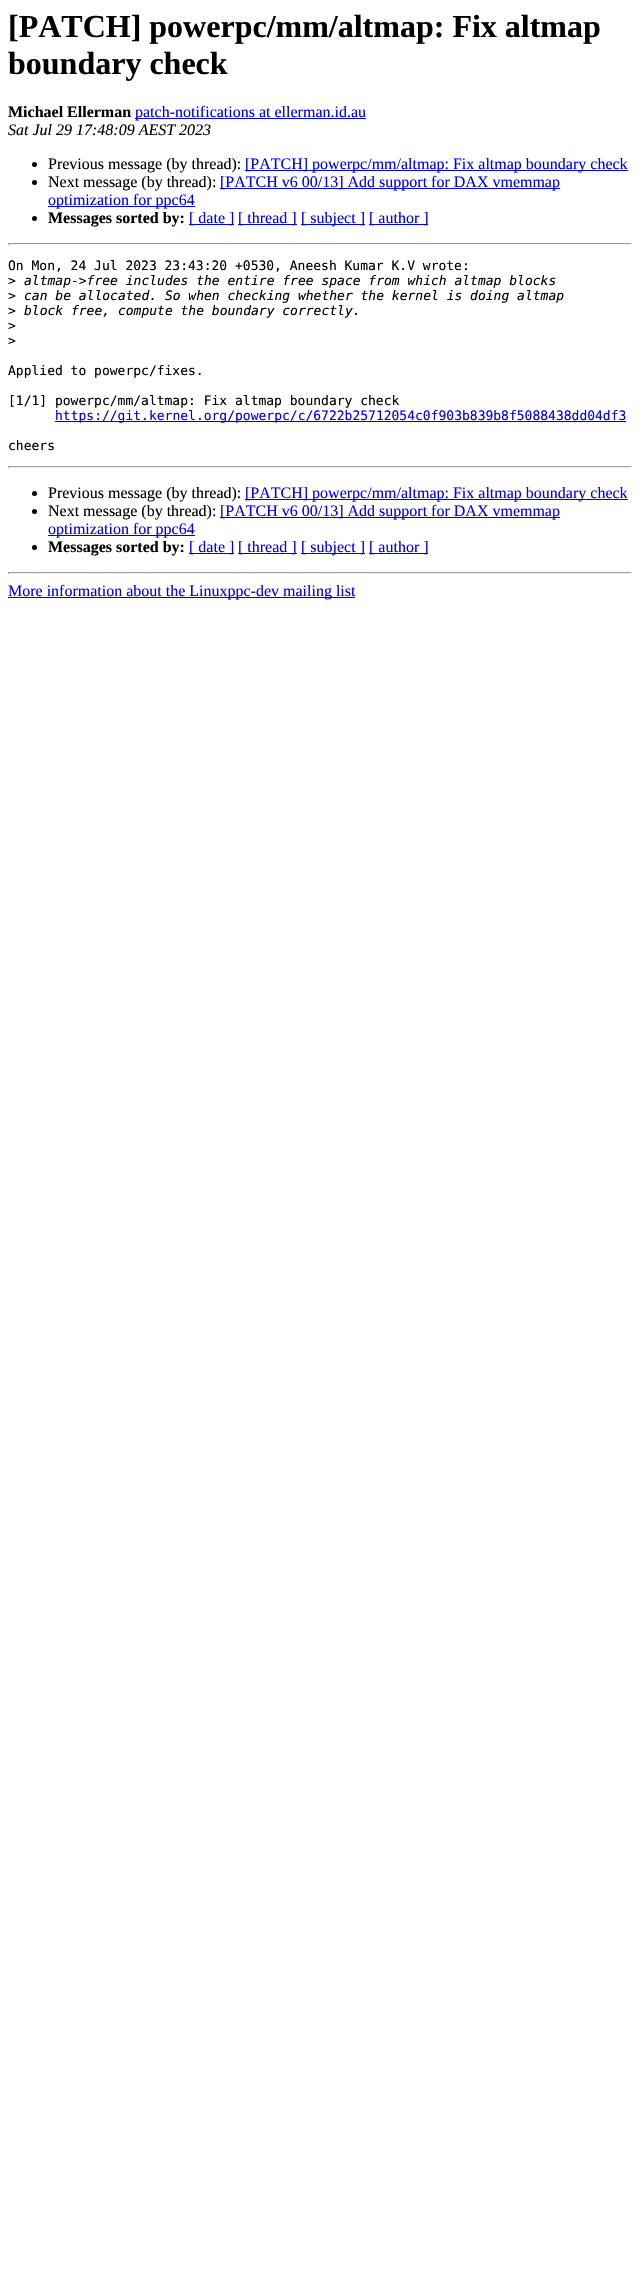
#include "include/core/SkBlurTypes.h"
#include "include/core/SkCanvas.h"
#include "include/core/SkData.h"
#include "include/core/SkFont.h"
#include "include/core/SkFontMgr.h"
#include "include/core/SkImage.h"
#include "include/core/SkMaskFilter.h"
#include "include/core/SkPaint.h"
#include "include/core/SkPathBuilder.h"
#include "include/core/SkTextBlob.h"
#include "include/effects/SkDashPathEffect.h"
#include "include/effects/SkGradientShader.h"
#include "include/utils/SkParsePath.h"

extern sk_sp<SkFontMgr> fontMgr;

void draw(SkCanvas* canvas) {
    SkPaint p;
    p.setAntiAlias(true);
    auto font = [&](const char* family, int weight, float size, bool italic = false) {
        SkFontStyle style(weight, SkFontStyle::kNormal_Width,
            italic ? SkFontStyle::kItalic_Slant : SkFontStyle::kUpright_Slant);
        SkFont result(fontMgr->matchFamilyStyle(family, style), size);
        result.setSubpixel(true);
        return result;
    };
    canvas->clear(0xFFFFFFFF);
    auto font1 = font("Liberation Serif", 700, 32);
    p.setColor(0xFF000000);
    canvas->drawString("[PATCH] powerpc/mm/altmap: Fix altmap", 8, 37, font1, p);
    canvas->drawString("boundary check", 8, 74, font1, p);
    auto font2 = font("Liberation Serif", 700, 16);
    canvas->drawString("Michael Ellerman", 8, 117, font2, p);
    p.setColor(0xFF0000EE);
    canvas->drawRect(SkRect::MakeLTRB(135, 118, 366, 119), p);
    auto font3 = font("Liberation Serif", 400, 16);
    canvas->drawString("patch-notifications at ellerman.id.au", 135, 117, font3, p);
    auto font4 = font("Liberation Serif", 400, 16, true);
    p.setColor(0xFF000000);
    canvas->drawString("Sat Jul 29 17:48:09 AEST 2023", 8, 135, font4, p);
    canvas->drawCircle(34.5f, 164.5f, 2.5f, p);
    canvas->drawString("Previous message (by thread):", 48, 169, font3, p);
    p.setColor(0xFF0000EE);
    canvas->drawRect(SkRect::MakeLTRB(245, 170, 628, 171), p);
    canvas->drawString("[PATCH] powerpc/mm/altmap: Fix altmap boundary check", 245, 169, font3, p);
    p.setColor(0xFF000000);
    canvas->drawCircle(34.5f, 182.5f, 2.5f, p);
    canvas->drawString("Next message (by thread):", 48, 187, font3, p);
    p.setColor(0xFF0000EE);
    canvas->drawRect(SkRect::MakeLTRB(220, 188, 560, 189), p);
    canvas->drawString("[PATCH v6 00/13] Add support for DAX vmemmap", 220, 187, font3, p);
    canvas->drawRect(SkRect::MakeLTRB(48, 206, 195, 207), p);
    canvas->drawString("optimization for ppc64", 48, 205, font3, p);
    p.setColor(0xFF000000);
    canvas->drawCircle(34.5f, 218.5f, 2.5f, p);
    canvas->drawString("Messages sorted by:", 48, 223, font2, p);
    p.setColor(0xFF0000EE);
    canvas->drawRect(SkRect::MakeLTRB(189, 224, 234, 225), p);
    canvas->drawString("[ date ]", 189, 223, font3, p);
    canvas->drawRect(SkRect::MakeLTRB(238, 224, 297, 225), p);
    canvas->drawString("[ thread ]", 238, 223, font3, p);
    canvas->drawRect(SkRect::MakeLTRB(301, 224, 365, 225), p);
    canvas->drawString("[ subject ]", 301, 223, font3, p);
    canvas->drawRect(SkRect::MakeLTRB(369, 224, 428, 225), p);
    canvas->drawString("[ author ]", 369, 223, font3, p);
    {
        const struct { float l, t, r, b; SkColor color; } items[] = {
            {8, 243, 632, 244, 0xFF9F9F9F},
            {631, 243, 632, 245, 0xFFEEEEEE},
            {8, 244, 632, 245, 0xFFEEEEEE},
            {8, 243, 9, 245, 0xFF9F9F9F},
        };
        for (auto [l, t, r, b, color] : items) {
            p.setColor(color);
            canvas->drawRect(SkRect::MakeLTRB(l, t, r, b), p);
        }
    }
    auto font5 = font("DejaVu Sans Mono", 400, 13);
    p.setColor(0xFF000000);
    canvas->drawString("On Mon, 24 Jul 2023 23:43:20 +0530, Aneesh Kumar K.V wrote:", 8, 270, font5, p);
    canvas->drawString(">", 8, 285, font5, p);
    auto font6 = font("DejaVu Sans Mono", 400, 13, true);
    canvas->drawString("altmap->free includes the entire free space from which altmap blocks", 24, 285, font6, p);
    canvas->drawString(">", 8, 300, font5, p);
    canvas->drawString("can be allocated. So when checking whether the kernel is doing altmap", 24, 300, font6, p);
    canvas->drawString(">", 8, 315, font5, p);
    canvas->drawString("block free, compute the boundary correctly.", 24, 315, font6, p);
    {
        const struct { const char* s; float x, y; } items[] = {
            {">", 8, 330},
            {">", 8, 345},
            {"Applied to powerpc/fixes.", 8, 375},
            {"[1/1] powerpc/mm/altmap: Fix altmap boundary check", 8, 405},
        };
        for (auto [s, x, y] : items) {
            canvas->drawString(s, x, y, font5, p);
        }
    }
    p.setColor(0xFF0000EE);
    canvas->drawRect(SkRect::MakeLTRB(55, 421, 626, 422), p);
    canvas->drawString("https://git.kernel.org/powerpc/c/6722b25712054c0f903b839b8f5088438dd04df3", 55, 420, font5, p);
    p.setColor(0xFF000000);
    canvas->drawString("cheers", 8, 450, font5, p);
    {
        const struct { float l, t, r, b; SkColor color; } items[] = {
            {8, 466, 632, 467, 0xFF9F9F9F},
            {631, 466, 632, 468, 0xFFEEEEEE},
            {8, 467, 632, 468, 0xFFEEEEEE},
            {8, 466, 9, 468, 0xFF9F9F9F},
        };
        for (auto [l, t, r, b, color] : items) {
            p.setColor(color);
            canvas->drawRect(SkRect::MakeLTRB(l, t, r, b), p);
        }
    }
    p.setColor(0xFF000000);
    canvas->drawCircle(34.5f, 493.5f, 2.5f, p);
    canvas->drawString("Previous message (by thread):", 48, 498, font3, p);
    p.setColor(0xFF0000EE);
    canvas->drawRect(SkRect::MakeLTRB(245, 499, 628, 500), p);
    canvas->drawString("[PATCH] powerpc/mm/altmap: Fix altmap boundary check", 245, 498, font3, p);
    p.setColor(0xFF000000);
    canvas->drawCircle(34.5f, 511.5f, 2.5f, p);
    canvas->drawString("Next message (by thread):", 48, 516, font3, p);
    p.setColor(0xFF0000EE);
    canvas->drawRect(SkRect::MakeLTRB(220, 517, 560, 518), p);
    canvas->drawString("[PATCH v6 00/13] Add support for DAX vmemmap", 220, 516, font3, p);
    canvas->drawRect(SkRect::MakeLTRB(48, 535, 195, 536), p);
    canvas->drawString("optimization for ppc64", 48, 534, font3, p);
    p.setColor(0xFF000000);
    canvas->drawCircle(34.5f, 547.5f, 2.5f, p);
    canvas->drawString("Messages sorted by:", 48, 552, font2, p);
    p.setColor(0xFF0000EE);
    canvas->drawRect(SkRect::MakeLTRB(189, 553, 234, 554), p);
    canvas->drawString("[ date ]", 189, 552, font3, p);
    canvas->drawRect(SkRect::MakeLTRB(238, 553, 297, 554), p);
    canvas->drawString("[ thread ]", 238, 552, font3, p);
    canvas->drawRect(SkRect::MakeLTRB(301, 553, 365, 554), p);
    canvas->drawString("[ subject ]", 301, 552, font3, p);
    canvas->drawRect(SkRect::MakeLTRB(369, 553, 428, 554), p);
    canvas->drawString("[ author ]", 369, 552, font3, p);
    {
        const struct { float l, t, r, b; SkColor color; } items[] = {
            {8, 572, 632, 573, 0xFF9F9F9F},
            {631, 572, 632, 574, 0xFFEEEEEE},
            {8, 573, 632, 574, 0xFFEEEEEE},
            {8, 572, 9, 574, 0xFF9F9F9F},
            {8, 597, 355, 598, 0xFF0000EE},
        };
        for (auto [l, t, r, b, color] : items) {
            p.setColor(color);
            canvas->drawRect(SkRect::MakeLTRB(l, t, r, b), p);
        }
    }
    canvas->drawString("More information about the Linuxppc-dev mailing list", 8, 596, font3, p);
}
